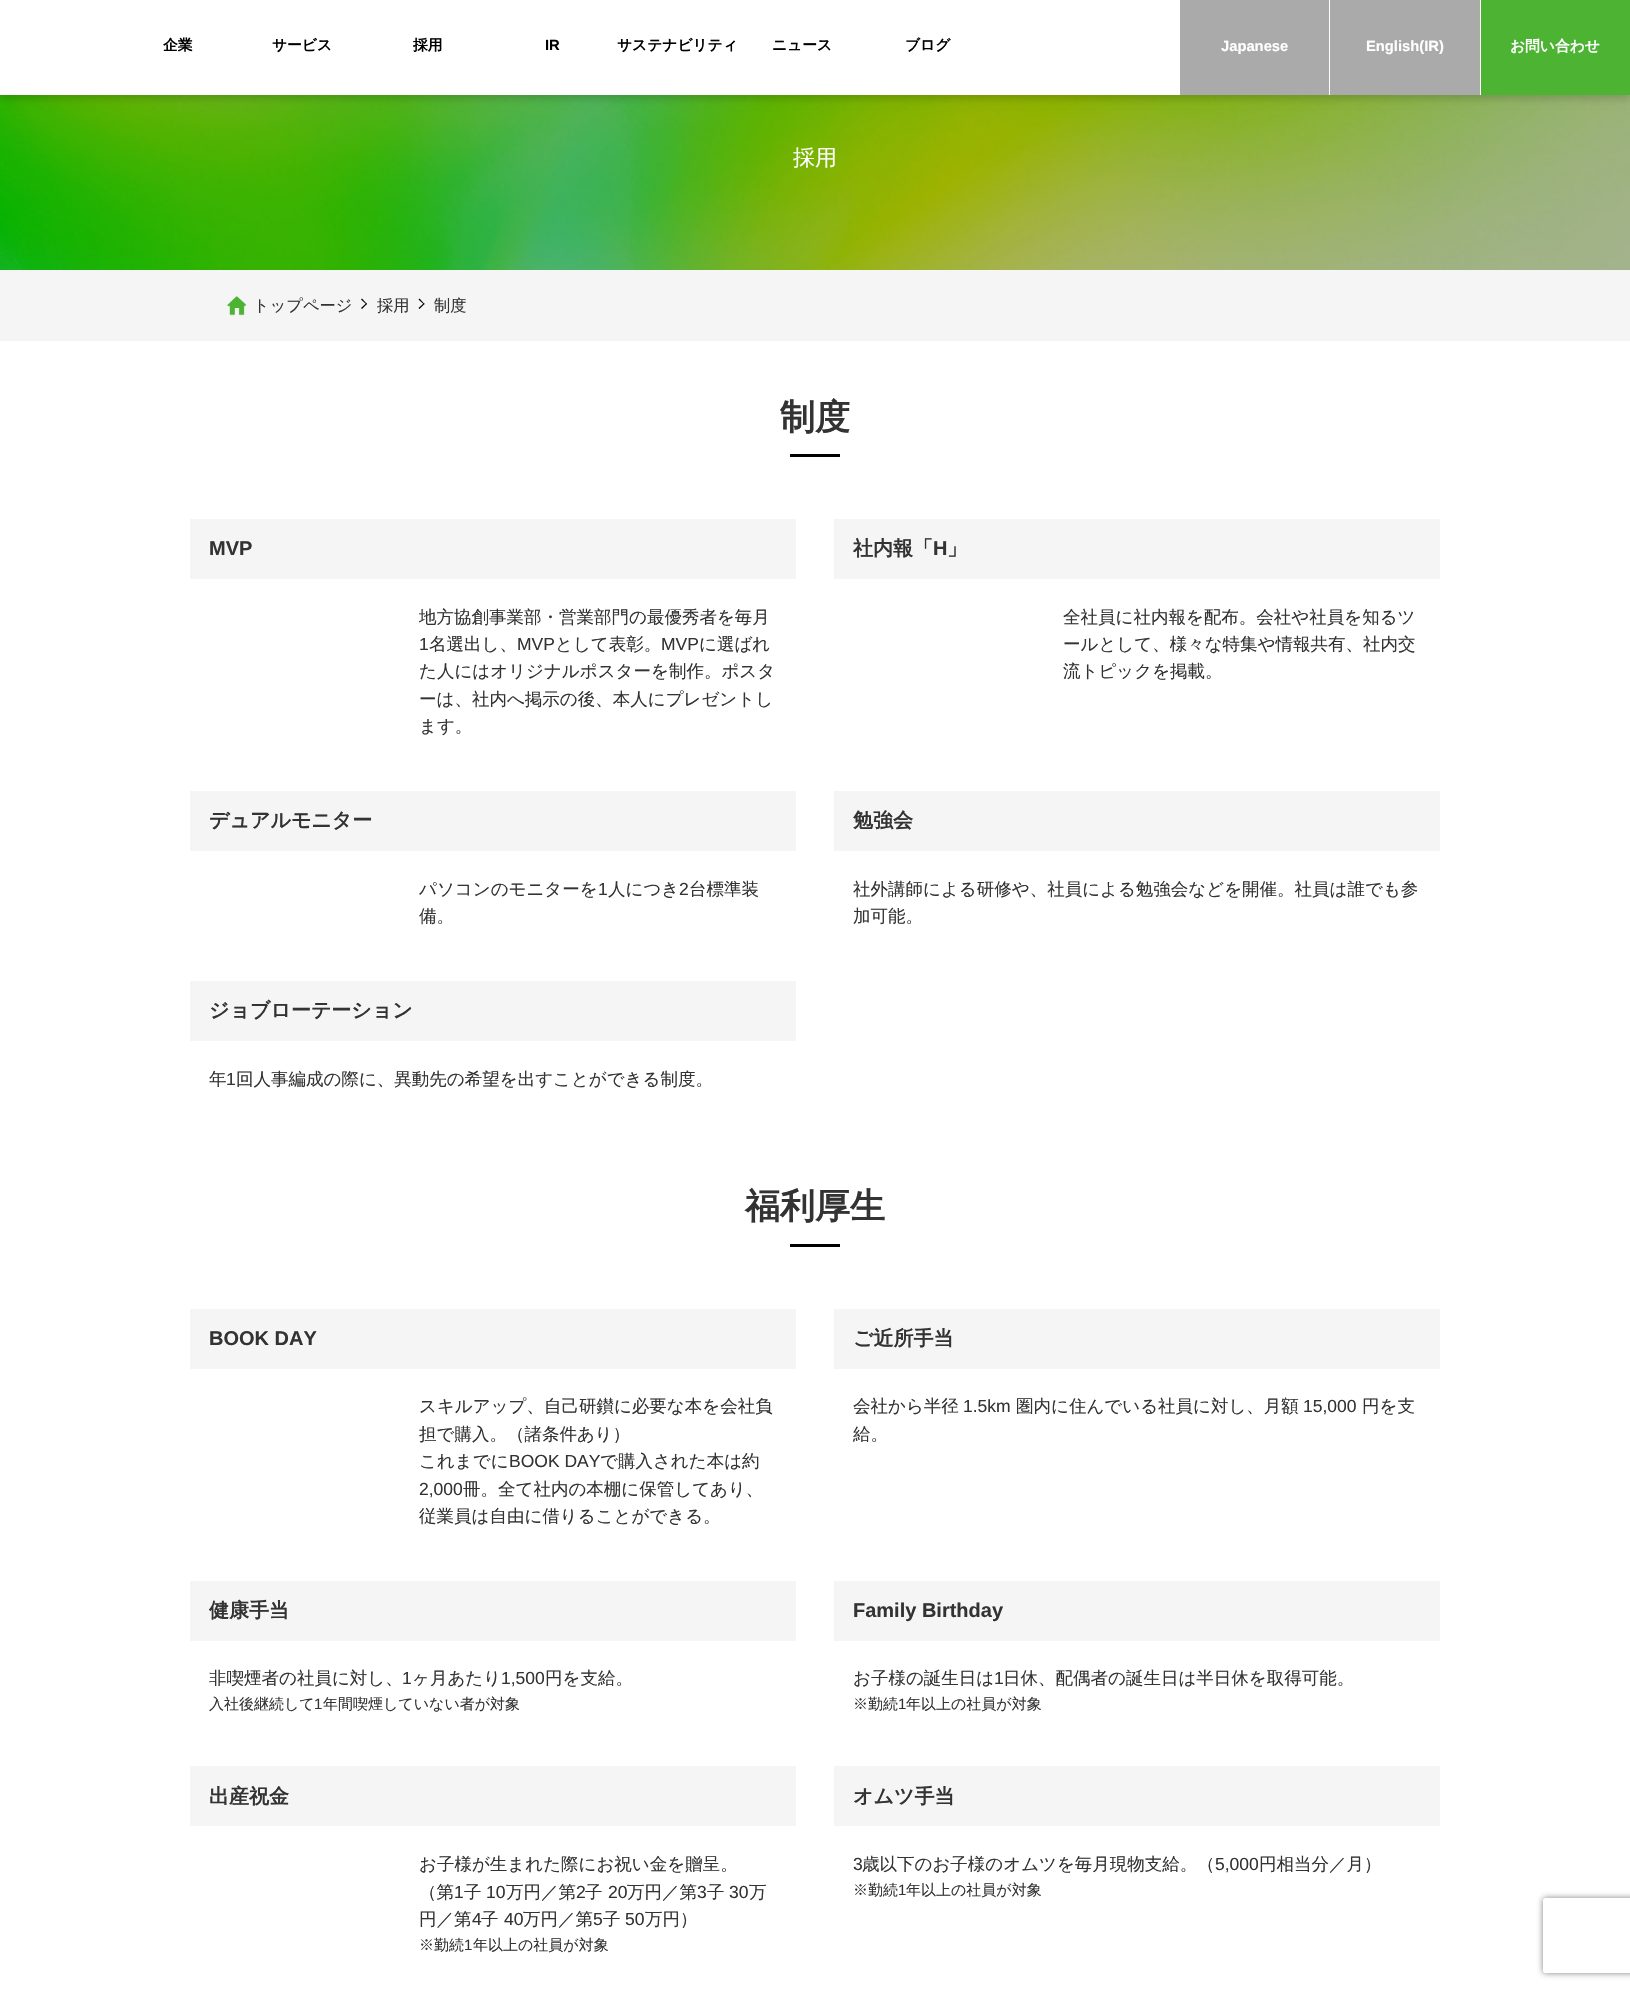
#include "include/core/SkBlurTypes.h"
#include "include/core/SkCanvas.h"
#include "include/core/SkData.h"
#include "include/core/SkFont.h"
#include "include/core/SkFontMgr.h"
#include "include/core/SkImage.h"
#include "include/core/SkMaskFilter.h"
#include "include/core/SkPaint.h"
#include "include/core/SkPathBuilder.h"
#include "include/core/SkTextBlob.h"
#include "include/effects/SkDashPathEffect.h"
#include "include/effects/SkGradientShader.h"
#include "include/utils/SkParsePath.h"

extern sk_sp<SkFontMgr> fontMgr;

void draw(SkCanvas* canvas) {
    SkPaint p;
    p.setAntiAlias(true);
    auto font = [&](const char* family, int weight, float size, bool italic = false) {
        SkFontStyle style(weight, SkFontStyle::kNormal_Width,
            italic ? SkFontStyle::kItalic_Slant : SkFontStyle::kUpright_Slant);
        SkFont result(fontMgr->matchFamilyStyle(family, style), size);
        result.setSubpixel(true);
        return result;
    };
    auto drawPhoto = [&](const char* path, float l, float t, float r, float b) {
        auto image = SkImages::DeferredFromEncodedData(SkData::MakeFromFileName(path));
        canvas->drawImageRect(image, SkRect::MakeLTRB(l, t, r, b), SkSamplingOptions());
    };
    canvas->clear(0xFFFFFFFF);
    drawPhoto("media/1.png", 0, 95, 1630, 270);
    p.setColor(0x29000000);
    p.setMaskFilter(SkMaskFilter::MakeBlur(kNormal_SkBlurStyle, 4));
    canvas->drawRect(SkRect::MakeLTRB(0, 4, 1630, 99), p);
    p.setMaskFilter(nullptr);
    p.setColor(0xFFFFFFFF);
    canvas->drawRect(SkRect::MakeLTRB(0, 0, 1180, 95), p);
    auto font1 = font("WenQuanYi Zen Hei", 700, 14.75f);
    p.setColor(0xFF000000);
    {
        const struct { const char* s; float x, y; } items[] = {
            {"企業", 163, 50},
            {"サービス", 272, 50},
            {"採用", 413, 50},
        };
        for (auto [s, x, y] : items) {
            canvas->drawString(s, x, y, font1, p);
        }
    }
    auto font2 = font("Liberation Sans", 700, 14.75f);
    canvas->drawString("IR", 545, 50, font2, p);
    {
        const struct { const char* s; float x, y; } items[] = {
            {"サステナビリティ", 617, 50},
            {"ニュース", 772, 50},
            {"ブログ", 905, 50},
        };
        for (auto [s, x, y] : items) {
            canvas->drawString(s, x, y, font1, p);
        }
    }
    p.setColor(0xFFAAAAAA);
    canvas->drawRect(SkRect::MakeLTRB(1180, 0, 1329, 95), p);
    p.setColor(0xFFFFFFFF);
    canvas->drawRect(SkRect::MakeLTRB(1329, 0, 1330, 95), p);
    canvas->drawString("Japanese", 1221, 51, font2, p);
    p.setColor(0xFFAAAAAA);
    canvas->drawRect(SkRect::MakeLTRB(1330, 0, 1480, 95), p);
    p.setColor(0xFFFFFFFF);
    canvas->drawRect(SkRect::MakeLTRB(1480, 0, 1481, 95), p);
    canvas->drawString("English(IR)", 1366, 51, font2, p);
    p.setColor(0xFF4DB333);
    canvas->drawRect(SkRect::MakeLTRB(1481, 0, 1630, 95), p);
    p.setColor(0xFFFFFFFF);
    canvas->drawString("お問い合わせ", 1510, 51, font1, p);
    auto font3 = font("WenQuanYi Zen Hei", 500, 22);
    canvas->drawString("採用", 793, 165, font3, p);
    p.setColor(0xFFF5F5F5);
    canvas->drawRect(SkRect::MakeLTRB(0, 270, 1630, 341), p);
    drawPhoto("media/2.png", 227, 296, 247, 316);
    auto font4 = font("WenQuanYi Zen Hei", 500, 16.25f);
    p.setColor(0xFF333333);
    canvas->drawString("トップページ", 253, 311, font4, p);
    p.setColor(0xFF000000);
    canvas->drawPath(SkPathBuilder().moveTo(362, 298.5f).lineTo(367, 304).lineTo(366.5f, 304.5f).lineTo(361, 299.5f).close().detach(), p);
    canvas->drawPath(SkPathBuilder().moveTo(366.5f, 303).lineTo(367, 304).lineTo(362, 309).lineTo(361, 308).close().detach(), p);
    p.setColor(0xFF333333);
    canvas->drawString("採用", 377, 311, font4, p);
    p.setColor(0xFF000000);
    canvas->drawPath(SkPathBuilder().moveTo(419.5f, 298.5f).lineTo(424.5f, 304).lineTo(424, 304.5f).lineTo(418.5f, 299.5f).close().detach(), p);
    canvas->drawPath(SkPathBuilder().moveTo(424, 303).lineTo(424.5f, 304).lineTo(419.5f, 309).lineTo(418.5f, 308).close().detach(), p);
    p.setColor(0xFF333333);
    canvas->drawString("制度", 434, 311, font4, p);
    auto font5 = font("WenQuanYi Zen Hei", 700, 35);
    canvas->drawString("制度", 780, 429, font5, p);
    p.setColor(0xFF000000);
    canvas->drawRect(SkRect::MakeLTRB(790, 454, 840, 457), p);
    p.setColor(0xFFF5F5F5);
    canvas->drawRect(SkRect::MakeLTRB(190, 519, 796, 579), p);
    auto font6 = font("Liberation Sans", 700, 20);
    p.setColor(0xFF333333);
    canvas->drawString("MVP", 209, 555, font6, p);
    auto font7 = font("WenQuanYi Zen Hei", 500, 17.5f);
    canvas->drawString("地方協創事業部・営業部門の最優秀者を毎月", 419, 623, font7, p);
    auto font8 = font("Liberation Sans", 400, 17.5f);
    canvas->drawString("1", 419, 650, font8, p);
    canvas->drawString("名選出し、", 429, 650, font7, p);
    canvas->drawString("MVP", 517, 650, font8, p);
    canvas->drawString("として表彰。", 555, 650, font7, p);
    canvas->drawString("MVP", 661, 650, font8, p);
    {
        const struct { const char* s; float x, y; } items[] = {
            {"に選ばれ", 699, 650},
            {"た人にはオリジナルポスターを制作。ポスタ", 419, 677},
            {"ーは、社内へ掲示の後、本人にプレゼントし", 419, 705},
            {"ます。", 419, 732},
        };
        for (auto [s, x, y] : items) {
            canvas->drawString(s, x, y, font7, p);
        }
    }
    p.setColor(0xFFF5F5F5);
    canvas->drawRect(SkRect::MakeLTRB(834, 519, 1440, 579), p);
    auto font9 = font("WenQuanYi Zen Hei", 700, 20);
    p.setColor(0xFF333333);
    canvas->drawString("社内報「", 853, 555, font9, p);
    canvas->drawString("H", 933, 555, font6, p);
    canvas->drawString("」", 947, 555, font9, p);
    {
        const struct { const char* s; float x, y; } items[] = {
            {"全社員に社内報を配布。会社や社員を知るツ", 1063, 623},
            {"ールとして、様々な特集や情報共有、社内交", 1063, 650},
            {"流トピックを掲載。", 1063, 677},
        };
        for (auto [s, x, y] : items) {
            canvas->drawString(s, x, y, font7, p);
        }
    }
    p.setColor(0xFFF5F5F5);
    canvas->drawRect(SkRect::MakeLTRB(190, 791, 796, 851), p);
    p.setColor(0xFF333333);
    canvas->drawString("デュアルモニター", 209, 827, font9, p);
    canvas->drawString("パソコンのモニターを", 419, 895, font7, p);
    canvas->drawString("1", 598, 895, font8, p);
    canvas->drawString("人につき", 608, 895, font7, p);
    canvas->drawString("2", 679, 895, font8, p);
    canvas->drawString("台標準装", 689, 895, font7, p);
    canvas->drawString("備。", 419, 922, font7, p);
    p.setColor(0xFFF5F5F5);
    canvas->drawRect(SkRect::MakeLTRB(834, 791, 1440, 851), p);
    p.setColor(0xFF333333);
    canvas->drawString("勉強会", 853, 827, font9, p);
    canvas->drawString("社外講師による研修や、社員による勉強会などを開催。社員は誰でも参", 853, 895, font7, p);
    canvas->drawString("加可能。", 853, 922, font7, p);
    p.setColor(0xFFF5F5F5);
    canvas->drawRect(SkRect::MakeLTRB(190, 981, 796, 1041), p);
    p.setColor(0xFF333333);
    canvas->drawString("ジョブローテーション", 209, 1017, font9, p);
    canvas->drawString("年", 209, 1085, font7, p);
    canvas->drawString("1", 226, 1085, font8, p);
    canvas->drawString("回人事編成の際に、異動先の希望を出すことができる制度。", 236, 1085, font7, p);
    canvas->drawString("福利厚生", 745, 1218, font5, p);
    p.setColor(0xFF000000);
    canvas->drawRect(SkRect::MakeLTRB(790, 1244, 840, 1247), p);
    p.setColor(0xFFF5F5F5);
    canvas->drawRect(SkRect::MakeLTRB(190, 1309, 796, 1369), p);
    p.setColor(0xFF333333);
    canvas->drawString("BOOK DAY", 209, 1345, font6, p);
    {
        const struct { const char* s; float x, y; } items[] = {
            {"スキルアップ、自己研鑚に必要な本を会社負", 419, 1412},
            {"担で購入。（諸条件あり）", 419, 1440},
            {"これまでに", 419, 1467},
        };
        for (auto [s, x, y] : items) {
            canvas->drawString(s, x, y, font7, p);
        }
    }
    canvas->drawString("BOOK DAY", 509, 1467, font8, p);
    canvas->drawString("で購入された本は約", 600, 1467, font7, p);
    canvas->drawString("2,000", 419, 1495, font8, p);
    canvas->drawString("冊。全て社内の本棚に保管してあり、", 463, 1495, font7, p);
    canvas->drawString("従業員は自由に借りることができる。", 419, 1522, font7, p);
    p.setColor(0xFFF5F5F5);
    canvas->drawRect(SkRect::MakeLTRB(834, 1309, 1440, 1369), p);
    p.setColor(0xFF333333);
    canvas->drawString("ご近所手当", 853, 1345, font9, p);
    canvas->drawString("会社から半径", 853, 1412, font7, p);
    canvas->drawString("1.5km", 963, 1412, font8, p);
    canvas->drawString("圏内に住んでいる社員に対し、月額", 1016, 1412, font7, p);
    canvas->drawString("15,000", 1303, 1412, font8, p);
    canvas->drawString("円を支", 1362, 1412, font7, p);
    canvas->drawString("給。", 853, 1440, font7, p);
    p.setColor(0xFFF5F5F5);
    canvas->drawRect(SkRect::MakeLTRB(190, 1581, 796, 1641), p);
    p.setColor(0xFF333333);
    canvas->drawString("健康手当", 209, 1617, font9, p);
    canvas->drawString("非喫煙者の社員に対し、", 209, 1684, font7, p);
    canvas->drawString("1", 402, 1684, font8, p);
    canvas->drawString("ヶ月あたり", 412, 1684, font7, p);
    canvas->drawString("1,500", 501, 1684, font8, p);
    canvas->drawString("円を支給。", 545, 1684, font7, p);
    auto font10 = font("WenQuanYi Zen Hei", 500, 15);
    canvas->drawString("入社後継続して", 209, 1709, font10, p);
    auto font11 = font("Liberation Sans", 400, 15);
    canvas->drawString("1", 314, 1709, font11, p);
    canvas->drawString("年間喫煙していない者が対象", 323, 1709, font10, p);
    p.setColor(0xFFF5F5F5);
    canvas->drawRect(SkRect::MakeLTRB(834, 1581, 1440, 1641), p);
    p.setColor(0xFF333333);
    canvas->drawString("Family Birthday", 853, 1617, font6, p);
    canvas->drawString("お子様の誕生日は", 853, 1684, font7, p);
    canvas->drawString("1", 994, 1684, font8, p);
    canvas->drawString("日休、配偶者の誕生日は半日休を取得可能。", 1003, 1684, font7, p);
    canvas->drawString("※勤続", 853, 1709, font10, p);
    canvas->drawString("1", 898, 1709, font11, p);
    canvas->drawString("年以上の社員が対象", 906, 1709, font10, p);
    p.setColor(0xFFF5F5F5);
    canvas->drawRect(SkRect::MakeLTRB(190, 1766, 796, 1826), p);
    p.setColor(0xFF333333);
    canvas->drawString("出産祝金", 209, 1803, font9, p);
    canvas->drawString("お子様が生まれた際にお祝い金を贈呈。", 419, 1870, font7, p);
    canvas->drawString("（第", 419, 1898, font7, p);
    canvas->drawString("1", 454, 1898, font8, p);
    canvas->drawString("子", 464, 1898, font7, p);
    canvas->drawString("10", 486, 1898, font8, p);
    canvas->drawString("万円／第", 506, 1898, font7, p);
    canvas->drawString("2", 576, 1898, font8, p);
    canvas->drawString("子", 585, 1898, font7, p);
    canvas->drawString("20", 608, 1898, font8, p);
    canvas->drawString("万円／第", 627, 1898, font7, p);
    canvas->drawString("3", 697, 1898, font8, p);
    canvas->drawString("子", 707, 1898, font7, p);
    canvas->drawString("30", 729, 1898, font8, p);
    canvas->drawString("万", 749, 1898, font7, p);
    canvas->drawString("円／第", 419, 1925, font7, p);
    canvas->drawString("4", 472, 1925, font8, p);
    canvas->drawString("子", 481, 1925, font7, p);
    canvas->drawString("40", 504, 1925, font8, p);
    canvas->drawString("万円／第", 523, 1925, font7, p);
    canvas->drawString("5", 593, 1925, font8, p);
    canvas->drawString("子", 603, 1925, font7, p);
    canvas->drawString("50", 625, 1925, font8, p);
    canvas->drawString("万円）", 645, 1925, font7, p);
    canvas->drawString("※勤続", 419, 1950, font10, p);
    canvas->drawString("1", 464, 1950, font11, p);
    canvas->drawString("年以上の社員が対象", 473, 1950, font10, p);
    p.setColor(0xFFF5F5F5);
    canvas->drawRect(SkRect::MakeLTRB(834, 1766, 1440, 1826), p);
    p.setColor(0xFF333333);
    canvas->drawString("オムツ手当", 853, 1803, font9, p);
    canvas->drawString("3", 853, 1870, font8, p);
    canvas->drawString("歳以下のお子様のオムツを毎月現物支給。（", 862, 1870, font7, p);
    canvas->drawString("5,000", 1215, 1870, font8, p);
    canvas->drawString("円相当分／月）", 1259, 1870, font7, p);
    canvas->drawString("※勤続", 853, 1895, font10, p);
    canvas->drawString("1", 898, 1895, font11, p);
    canvas->drawString("年以上の社員が対象", 906, 1895, font10, p);
    canvas->save();
    canvas->clipPath(SkPathBuilder(SkPathFillType::kEvenOdd).moveTo(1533, 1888).lineTo(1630, 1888).lineTo(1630, 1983).lineTo(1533, 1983).close().moveTo(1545.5f, 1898).lineTo(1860.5f, 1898).cubicTo(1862, 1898, 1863, 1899, 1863, 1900.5f).lineTo(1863, 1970.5f).cubicTo(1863, 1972, 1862, 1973, 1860.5f, 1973).lineTo(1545.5f, 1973).cubicTo(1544, 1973, 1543, 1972, 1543, 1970.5f).lineTo(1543, 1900.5f).cubicTo(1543, 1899, 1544, 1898, 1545.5f, 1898).close().detach(), true);
    p.setColor(0xFF808080);
    p.setMaskFilter(SkMaskFilter::MakeBlur(kNormal_SkBlurStyle, 3));
    canvas->drawRoundRect(SkRect::MakeLTRB(1543, 1898, 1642, 1973), 2.5f, 2.5f, p);
    p.setMaskFilter(nullptr);
    canvas->restore();
}
